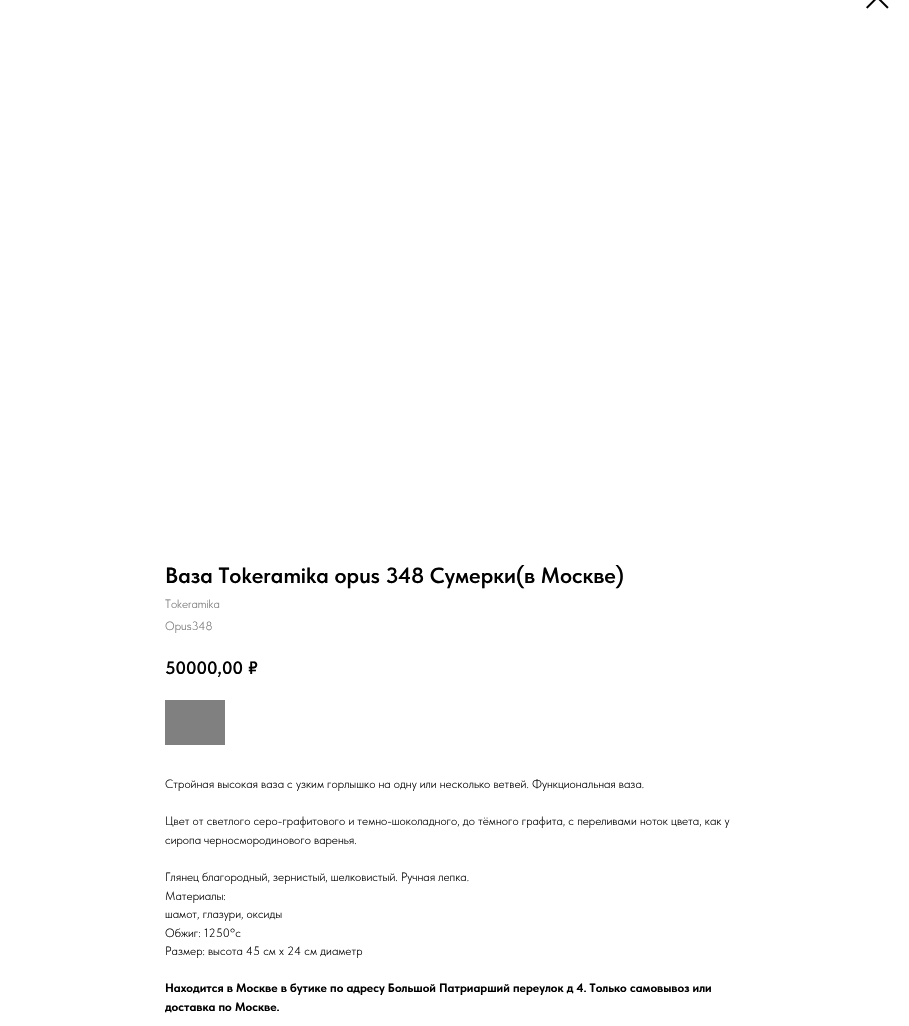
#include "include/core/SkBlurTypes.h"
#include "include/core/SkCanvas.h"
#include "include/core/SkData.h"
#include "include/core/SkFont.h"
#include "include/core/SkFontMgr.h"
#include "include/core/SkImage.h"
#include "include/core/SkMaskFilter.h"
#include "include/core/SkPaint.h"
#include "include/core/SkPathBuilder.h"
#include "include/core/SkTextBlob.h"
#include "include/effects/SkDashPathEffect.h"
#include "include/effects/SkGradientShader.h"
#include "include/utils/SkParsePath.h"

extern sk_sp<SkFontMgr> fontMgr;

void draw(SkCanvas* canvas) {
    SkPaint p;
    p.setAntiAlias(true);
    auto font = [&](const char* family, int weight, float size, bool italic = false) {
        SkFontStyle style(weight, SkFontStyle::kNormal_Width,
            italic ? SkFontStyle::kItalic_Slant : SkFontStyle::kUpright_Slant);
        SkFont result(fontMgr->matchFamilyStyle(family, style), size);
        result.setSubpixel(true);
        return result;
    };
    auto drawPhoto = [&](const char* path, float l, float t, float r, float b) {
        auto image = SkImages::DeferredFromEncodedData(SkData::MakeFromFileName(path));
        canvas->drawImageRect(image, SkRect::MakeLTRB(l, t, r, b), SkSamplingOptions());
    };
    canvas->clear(0xFFFFFFFF);
    drawPhoto("media/1.png", 866, 0, 889, 9);
    auto font1 = font("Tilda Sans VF", 600, 22);
    p.setColor(0xFF000000);
    canvas->drawString("Ваза Tokeramika opus 348 Сумерки(в Москве)", 165, 583, font1, p);
    auto font2 = font("Tilda Sans VF", 300, 12);
    p.setColor(0xFF777777);
    canvas->drawString("Tokeramika", 165, 608, font2, p);
    canvas->drawString("Opus348", 165, 630, font2, p);
    auto font3 = font("Tilda Sans VF", 600, 18);
    p.setColor(0xFF000000);
    canvas->drawString("50000,00", 165, 674, font3, p);
    canvas->drawString("₽", 248, 674, font3, p);
    p.setColor(0xFF808080);
    canvas->drawRect(SkRect::MakeLTRB(165, 700, 225, 745), p);
    p.setColor(0xFF000000);
    {
        const struct { const char* s; float x, y; } items[] = {
            {"Стройная высокая ваза с узким горлышко на одну или несколько ветвей. Функциональная ваза.", 165, 788},
            {"Цвет от светлого серо-графитового и темно-шоколадного, до тёмного графита, с переливами ноток цвета, как у", 165, 825},
            {"сиропа черносмородинового варенья.", 165, 844},
            {"Глянец благородный, зернистый, шелковистый. Ручная лепка.", 165, 881},
            {"Материалы:", 165, 900},
            {"шамот, глазури, оксиды", 165, 918},
            {"Обжиг: 1250°с", 165, 937},
            {"Размер: высота 45 см х 24 см диаметр", 165, 955},
        };
        for (auto [s, x, y] : items) {
            canvas->drawString(s, x, y, font2, p);
        }
    }
    auto font4 = font("Tilda Sans VF", 700, 12);
    canvas->drawString("Находится в Москве в бутике по адресу Большой Патриарший переулок д 4. Только самовывоз или", 165, 992, font4, p);
    canvas->drawString("доставка по Москве.", 165, 1011, font4, p);
}
